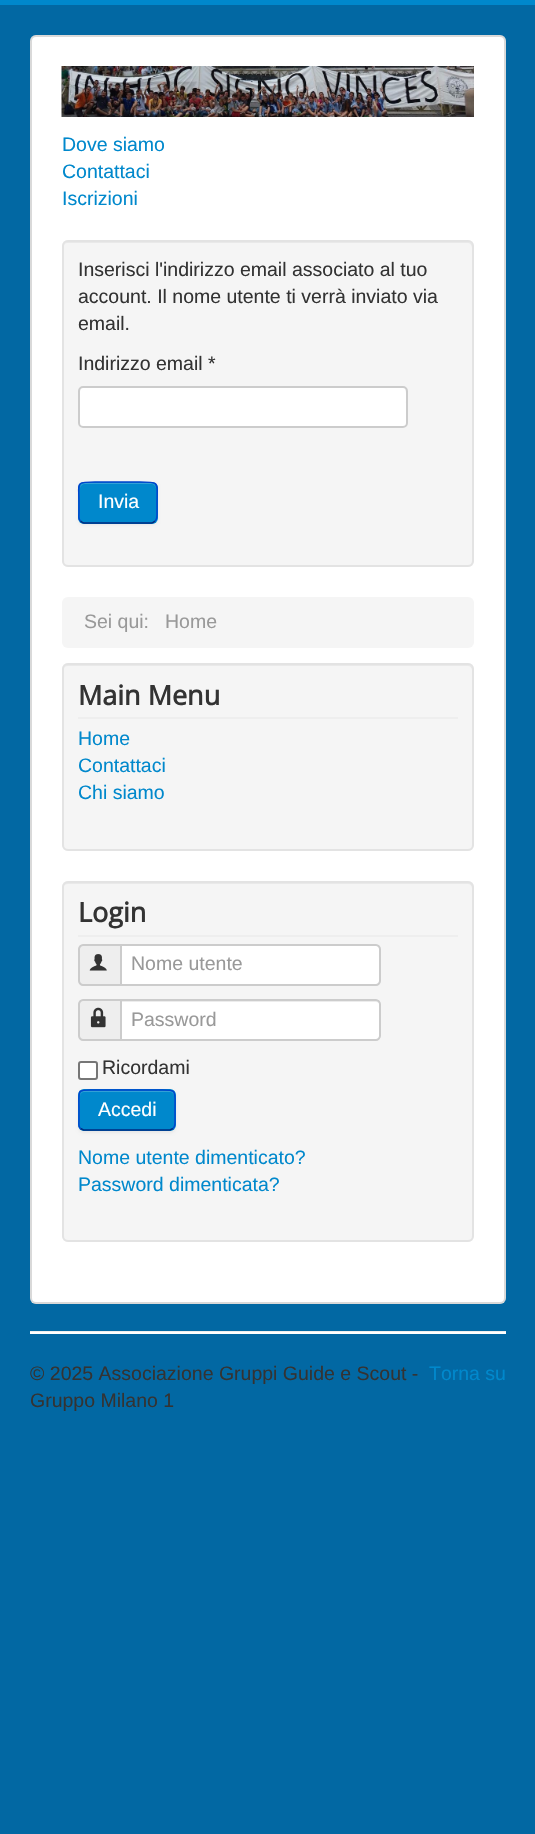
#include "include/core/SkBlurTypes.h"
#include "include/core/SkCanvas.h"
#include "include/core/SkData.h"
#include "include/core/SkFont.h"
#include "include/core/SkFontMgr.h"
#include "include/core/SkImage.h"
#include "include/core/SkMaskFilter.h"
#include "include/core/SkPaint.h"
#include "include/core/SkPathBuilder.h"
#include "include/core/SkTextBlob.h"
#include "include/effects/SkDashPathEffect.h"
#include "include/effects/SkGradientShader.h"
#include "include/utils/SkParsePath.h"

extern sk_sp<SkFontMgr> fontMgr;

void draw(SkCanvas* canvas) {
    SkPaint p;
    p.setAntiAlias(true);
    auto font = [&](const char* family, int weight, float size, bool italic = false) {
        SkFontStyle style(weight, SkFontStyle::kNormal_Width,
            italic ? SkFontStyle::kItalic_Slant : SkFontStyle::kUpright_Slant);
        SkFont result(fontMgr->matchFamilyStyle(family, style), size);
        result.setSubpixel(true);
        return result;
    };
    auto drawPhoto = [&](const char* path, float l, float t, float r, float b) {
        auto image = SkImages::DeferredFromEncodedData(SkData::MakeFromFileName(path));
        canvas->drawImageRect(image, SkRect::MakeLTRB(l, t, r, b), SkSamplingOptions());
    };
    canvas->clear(0xFF0268A3);
    p.setColor(0xFF0088CC);
    canvas->drawRect(SkRect::MakeLTRB(0, 0, 535, 5), p);
    p.setColor(0xFFFFFFFF);
    canvas->drawRoundRect(SkRect::MakeLTRB(30, 35, 506, 1304), 6, 6, p);
    p.setStyle(SkPaint::kStroke_Style);
    p.setStrokeWidth(2);
    p.setColor(0x26000000);
    canvas->drawRoundRect(SkRect::MakeLTRB(31, 36, 505, 1303), 5, 5, p);
    drawPhoto("media/1.png", 61, 66, 474, 117);
    auto font1 = font("Liberation Sans", 400, 19.5f);
    p.setStyle(SkPaint::kFill_Style);
    p.setColor(0xFF0088CC);
    {
        const struct { const char* s; float x, y; } items[] = {
            {"Dove siamo", 62, 151},
            {"Contattaci", 62, 178},
            {"Iscrizioni", 62, 205},
        };
        for (auto [s, x, y] : items) {
            canvas->drawString(s, x, y, font1, p);
        }
    }
    p.setColor(0xFFF5F5F5);
    canvas->drawRoundRect(SkRect::MakeLTRB(62, 240, 474, 567), 6, 6, p);
    p.setColor(0xFFE9E9E9);
    canvas->drawPath(SkPathBuilder().moveTo(68, 243).lineTo(468, 243).cubicTo(470, 243, 472, 245, 472, 248).lineTo(472, 562).lineTo(471, 565).cubicTo(472, 564, 473, 562, 473, 561).lineTo(473, 247).cubicTo(473, 244, 471, 242, 468, 242).lineTo(68, 242).cubicTo(65, 242, 63, 244, 63, 247).lineTo(63, 248).cubicTo(63, 245, 65, 243, 68, 243).close().detach(), p);
    p.setStyle(SkPaint::kStroke_Style);
    p.setColor(0xFFE3E3E3);
    canvas->drawRoundRect(SkRect::MakeLTRB(63, 241, 473, 566), 5, 5, p);
    p.setStyle(SkPaint::kFill_Style);
    p.setColor(0xFF333333);
    {
        const struct { const char* s; float x, y; } items[] = {
            {"Inserisci l'indirizzo email associato al tuo", 78, 276},
            {"account. Il nome utente ti verrà inviato via", 78, 303},
            {"email.", 78, 330},
            {"Indirizzo email *", 78, 370},
        };
        for (auto [s, x, y] : items) {
            canvas->drawString(s, x, y, font1, p);
        }
    }
    p.setColor(0xFFFFFFFF);
    canvas->drawRoundRect(SkRect::MakeLTRB(78, 386, 408, 428), 5, 5, p);
    p.setColor(0xFFECECEC);
    canvas->drawPath(SkPathBuilder().moveTo(82, 388).lineTo(404, 388).cubicTo(407, 388, 406, 402, 406, 403).lineTo(406, 425).cubicTo(407, 425, 407, 424, 407, 423).lineTo(407, 390).cubicTo(407, 388, 406, 387, 404, 387).lineTo(83, 387).cubicTo(81, 387, 80, 388, 80, 390).lineTo(80, 392).cubicTo(80, 390, 81, 388, 82, 388).close().detach(), p);
    p.setStyle(SkPaint::kStroke_Style);
    p.setColor(0xFFCCCCCC);
    canvas->drawRoundRect(SkRect::MakeLTRB(79, 387, 407, 427), 4, 4, p);
    p.setStyle(SkPaint::kFill_Style);
    p.setColor(0x0D000000);
    p.setMaskFilter(SkMaskFilter::MakeBlur(kNormal_SkBlurStyle, 1.5f));
    canvas->drawRoundRect(SkRect::MakeLTRB(78, 483, 158, 525), 6, 6, p);
    p.setMaskFilter(nullptr);
    p.setColor(0xFF0088CC);
    canvas->drawRoundRect(SkRect::MakeLTRB(78, 482, 158, 524), 6, 6, p);
    p.setColor(0xFF33A0D6);
    canvas->drawPath(SkPathBuilder().moveTo(84, 484).lineTo(152, 484).cubicTo(154, 484, 156, 487, 156, 489).cubicTo(156, 480, 146, 483, 140, 483).lineTo(96, 483).cubicTo(90, 483, 80, 480, 80, 489).cubicTo(80, 487, 82, 484, 84, 484).close().detach(), p);
    p.setStyle(SkPaint::kStroke_Style);
    p.setStrokeWidth(1.5f);
    p.setColor(0xFF002A80);
    canvas->drawPath(SkPathBuilder().moveTo(155, 521).cubicTo(154, 522, 153, 523, 151.5f, 523).lineTo(84, 523).cubicTo(82.5f, 523, 81.5f, 522, 80.5f, 521).detach(), p);
    p.setColor(0xFF0044CC);
    canvas->drawPath(SkPathBuilder().moveTo(80.5f, 521).cubicTo(78, 519, 79, 515.5f, 79, 512.5f).lineTo(79, 502.5f).cubicTo(79, 482, 75, 482, 95, 482).lineTo(140, 482).cubicTo(160.5f, 482, 157, 482, 157, 502.5f).lineTo(157, 512.5f).cubicTo(157, 515.5f, 157.5f, 519, 155, 521).detach(), p);
    p.setStyle(SkPaint::kFill_Style);
    p.setColor(0xFFFFFFFF);
    canvas->drawString("Invia", 98, 508, font1, p);
    p.setColor(0xFFF5F5F5);
    canvas->drawRoundRect(SkRect::MakeLTRB(62, 597, 474, 648), 6, 6, p);
    p.setColor(0xFF999999);
    canvas->drawString("Sei qui:", 84, 628, font1, p);
    canvas->drawString("Home", 165, 628, font1, p);
    p.setColor(0xFFF5F5F5);
    canvas->drawRoundRect(SkRect::MakeLTRB(62, 663, 474, 851), 6, 6, p);
    p.setColor(0xFFE9E9E9);
    canvas->drawPath(SkPathBuilder().moveTo(68, 666).lineTo(468, 666).cubicTo(470, 666, 472, 668, 472, 670).lineTo(472, 847).cubicTo(473, 846, 473, 845, 473, 844).lineTo(473, 670).cubicTo(473, 667, 471, 665, 468, 665).lineTo(68, 665).cubicTo(65, 665, 63, 667, 63, 670).cubicTo(63, 668, 65, 666, 68, 666).close().detach(), p);
    p.setStyle(SkPaint::kStroke_Style);
    p.setStrokeWidth(2);
    p.setColor(0xFFE3E3E3);
    canvas->drawRoundRect(SkRect::MakeLTRB(63, 664, 473, 850), 5, 5, p);
    p.setStyle(SkPaint::kFill_Style);
    p.setColor(0xFFEEEEEE);
    canvas->drawRect(SkRect::MakeLTRB(78, 717, 458, 719), p);
    auto font2 = font("Open Sans", 700, 27);
    p.setColor(0xFF333333);
    canvas->drawString("Main Menu", 78, 705, font2, p);
    p.setColor(0xFF0088CC);
    {
        const struct { const char* s; float x, y; } items[] = {
            {"Home", 78, 745},
            {"Contattaci", 78, 772},
            {"Chi siamo", 78, 799},
        };
        for (auto [s, x, y] : items) {
            canvas->drawString(s, x, y, font1, p);
        }
    }
    p.setColor(0xFFF5F5F5);
    canvas->drawRoundRect(SkRect::MakeLTRB(62, 881, 474, 1242), 6, 6, p);
    p.setColor(0xFFE9E9E9);
    canvas->drawPath(SkPathBuilder().moveTo(68, 884).lineTo(468, 884).cubicTo(470, 884, 472, 886, 472, 888).lineTo(472, 1239).cubicTo(473, 1238, 473, 1237, 473, 1236).lineTo(473, 887).cubicTo(473, 884, 471, 882, 468, 882).lineTo(68, 882).cubicTo(65, 882, 63, 884, 63, 887).lineTo(63, 888).cubicTo(63, 886, 65, 884, 68, 884).close().detach(), p);
    p.setStyle(SkPaint::kStroke_Style);
    p.setColor(0xFFE3E3E3);
    canvas->drawRoundRect(SkRect::MakeLTRB(63, 882, 473, 1241), 5, 5, p);
    p.setStyle(SkPaint::kFill_Style);
    p.setColor(0xFFEEEEEE);
    canvas->drawRect(SkRect::MakeLTRB(78, 935, 458, 937), p);
    p.setColor(0xFF333333);
    canvas->drawString("Login", 78, 922, font2, p);
    p.setColor(0xFFEEEEEE);
    canvas->drawPath(SkPathBuilder().moveTo(83, 945).lineTo(121, 945).lineTo(121, 985).lineTo(83, 985).cubicTo(81, 985, 79, 983, 79, 981).lineTo(79, 949).cubicTo(79, 947, 81, 945, 83, 945).close().detach(), p);
    p.setStyle(SkPaint::kStroke_Style);
    p.setColor(0xFFCCCCCC);
    canvas->drawPath(SkPathBuilder().moveTo(83, 945).lineTo(121, 945).lineTo(121, 985).lineTo(83, 985).cubicTo(81, 985, 79, 983, 79, 981).lineTo(79, 949).cubicTo(79, 947, 81, 945, 83, 945).close().detach(), p);
    drawPhoto("media/2.png", 89, 954, 107, 971);
    p.setStyle(SkPaint::kFill_Style);
    p.setColor(0xFFFFFFFF);
    canvas->drawPath(SkPathBuilder().moveTo(121, 945).lineTo(376, 945).cubicTo(378, 945, 380, 947, 380, 949).lineTo(380, 981).cubicTo(380, 983, 378, 985, 376, 985).lineTo(121, 985).close().detach(), p);
    p.setStyle(SkPaint::kStroke_Style);
    p.setColor(0xFFCCCCCC);
    canvas->drawPath(SkPathBuilder().moveTo(121, 945).lineTo(376, 945).cubicTo(378, 945, 380, 947, 380, 949).lineTo(380, 981).cubicTo(380, 983, 378, 985, 376, 985).lineTo(121, 985).close().detach(), p);
    p.setStyle(SkPaint::kFill_Style);
    p.setColor(0xFF999999);
    canvas->drawString("Nome utente", 131, 970, font1, p);
    p.setColor(0xFFEEEEEE);
    canvas->drawPath(SkPathBuilder().moveTo(83, 1000).lineTo(121, 1000).lineTo(121, 1040).lineTo(83, 1040).cubicTo(81, 1040, 79, 1038, 79, 1036).lineTo(79, 1004).cubicTo(79, 1002, 81, 1000, 83, 1000).close().detach(), p);
    p.setStyle(SkPaint::kStroke_Style);
    p.setColor(0xFFCCCCCC);
    canvas->drawPath(SkPathBuilder().moveTo(83, 1000).lineTo(121, 1000).lineTo(121, 1040).lineTo(83, 1040).cubicTo(81, 1040, 79, 1038, 79, 1036).lineTo(79, 1004).cubicTo(79, 1002, 81, 1000, 83, 1000).close().detach(), p);
    drawPhoto("media/3.png", 90, 1007, 106, 1028);
    p.setStyle(SkPaint::kFill_Style);
    p.setColor(0xFFFFFFFF);
    canvas->drawPath(SkPathBuilder().moveTo(120, 999).lineTo(376, 999).cubicTo(379, 999, 381, 1001, 381, 1004).lineTo(381, 1036).cubicTo(381, 1039, 379, 1041, 376, 1041).lineTo(120, 1041).close().detach(), p);
    p.setColor(0xFFECECEC);
    canvas->drawPath(SkPathBuilder().moveTo(122, 1002).lineTo(376, 1002).cubicTo(378, 1002, 380, 1003, 380, 1005).lineTo(380, 1004).cubicTo(380, 1002, 379, 1001, 377, 1001).lineTo(122, 1001).close().detach(), p);
    p.setStyle(SkPaint::kStroke_Style);
    p.setColor(0xFFCCCCCC);
    canvas->drawPath(SkPathBuilder().moveTo(121, 1000).lineTo(376, 1000).cubicTo(378, 1000, 380, 1002, 380, 1004).lineTo(380, 1036).cubicTo(380, 1038, 378, 1040, 376, 1040).lineTo(121, 1040).close().detach(), p);
    p.setStyle(SkPaint::kFill_Style);
    p.setColor(0xFF999999);
    canvas->drawString("Password", 131, 1026, font1, p);
    p.setColor(0xFFFFFFFF);
    canvas->drawRoundRect(SkRect::MakeLTRB(79, 1062, 97, 1079), 2, 2, p);
    p.setStyle(SkPaint::kStroke_Style);
    p.setColor(0xFF767676);
    canvas->drawRoundRect(SkRect::MakeLTRB(79, 1062, 97, 1079), 2, 2, p);
    p.setStyle(SkPaint::kFill_Style);
    p.setColor(0xFF333333);
    canvas->drawString("Ricordami", 102, 1074, font1, p);
    p.setColor(0x0D000000);
    p.setMaskFilter(SkMaskFilter::MakeBlur(kNormal_SkBlurStyle, 1.5f));
    canvas->drawRoundRect(SkRect::MakeLTRB(78, 1091, 176, 1133), 6, 6, p);
    p.setMaskFilter(nullptr);
    p.setColor(0xFF0088CC);
    canvas->drawRoundRect(SkRect::MakeLTRB(78, 1089, 176, 1131), 6, 6, p);
    p.setColor(0xFF33A0D6);
    canvas->drawPath(SkPathBuilder().moveTo(84, 1092).lineTo(170, 1092).cubicTo(172, 1092, 174, 1094, 174, 1096).cubicTo(174, 1093, 172, 1091, 169, 1091).lineTo(85, 1091).cubicTo(82, 1091, 80, 1093, 80, 1096).cubicTo(80, 1094, 82, 1092, 84, 1092).close().detach(), p);
    p.setStyle(SkPaint::kStroke_Style);
    p.setStrokeWidth(1.5f);
    p.setColor(0xFF002A80);
    canvas->drawPath(SkPathBuilder().moveTo(173, 1128.5f).lineTo(170, 1130).lineTo(83.5f, 1130).lineTo(80.5f, 1128.5f).detach(), p);
    p.setColor(0xFF0044CC);
    canvas->drawPath(SkPathBuilder().moveTo(80.5f, 1128.5f).cubicTo(78, 1126.5f, 79, 1123, 79, 1120).lineTo(79, 1110).cubicTo(79, 1087.5f, 75.5f, 1090, 98, 1090).lineTo(155, 1090).cubicTo(178, 1090, 175, 1087.5f, 175, 1110).lineTo(175, 1120).cubicTo(175, 1123, 175.5f, 1126.5f, 173, 1128.5f).detach(), p);
    p.setStyle(SkPaint::kFill_Style);
    p.setColor(0xFFFFFFFF);
    canvas->drawString("Accedi", 98, 1116, font1, p);
    p.setColor(0xFF0088CC);
    canvas->drawString("Nome utente dimenticato?", 78, 1164, font1, p);
    canvas->drawString("Password dimenticata?", 78, 1191, font1, p);
    p.setColor(0xFFEEEEEE);
    canvas->drawRect(SkRect::MakeLTRB(30, 1331, 506, 1332), p);
    p.setColor(0xFFFFFFFF);
    canvas->drawRect(SkRect::MakeLTRB(30, 1332, 506, 1334), p);
    p.setColor(0xFF333333);
    canvas->drawString("© 2025 Associazione Gruppi Guide e Scout -", 30, 1380, font1, p);
    canvas->drawString("Gruppo Milano 1", 30, 1407, font1, p);
    p.setColor(0xFF0088CC);
    canvas->drawString("Torna su", 429, 1380, font1, p);
}
